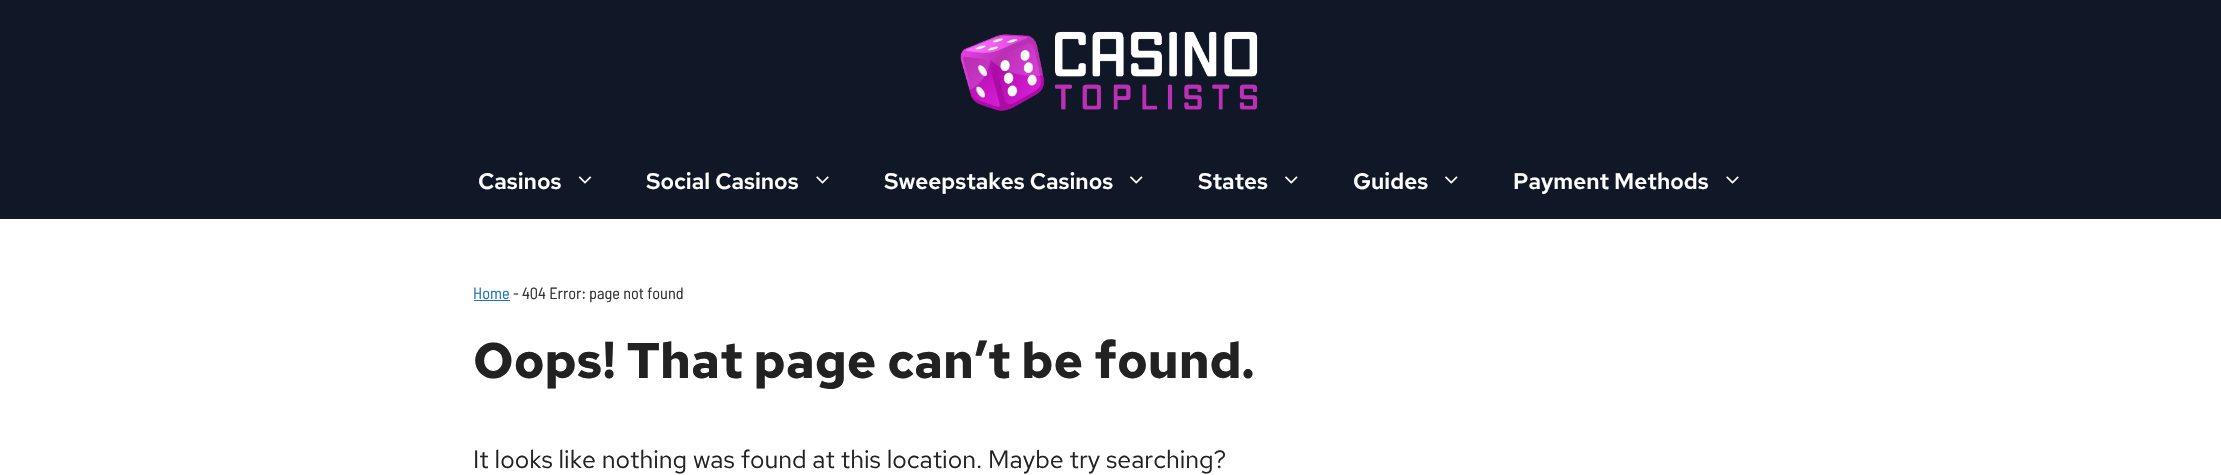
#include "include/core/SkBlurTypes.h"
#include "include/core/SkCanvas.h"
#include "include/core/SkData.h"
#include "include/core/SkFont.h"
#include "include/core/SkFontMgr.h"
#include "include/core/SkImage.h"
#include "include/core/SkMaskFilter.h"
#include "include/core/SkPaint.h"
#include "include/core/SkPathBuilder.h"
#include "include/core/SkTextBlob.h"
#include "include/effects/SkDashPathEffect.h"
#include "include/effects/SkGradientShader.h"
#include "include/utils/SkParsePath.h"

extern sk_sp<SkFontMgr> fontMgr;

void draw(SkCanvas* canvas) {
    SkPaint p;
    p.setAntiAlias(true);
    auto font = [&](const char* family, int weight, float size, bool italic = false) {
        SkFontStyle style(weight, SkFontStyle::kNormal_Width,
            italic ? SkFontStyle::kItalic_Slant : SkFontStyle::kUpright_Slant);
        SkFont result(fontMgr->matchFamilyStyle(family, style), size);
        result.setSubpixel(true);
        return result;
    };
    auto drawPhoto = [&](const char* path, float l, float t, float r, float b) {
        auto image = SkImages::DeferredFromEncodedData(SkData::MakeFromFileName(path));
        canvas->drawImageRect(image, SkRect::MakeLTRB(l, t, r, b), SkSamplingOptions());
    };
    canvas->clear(0xFFFFFFFF);
    p.setColor(0xFF101828);
    canvas->drawRect(SkRect::MakeLTRB(0, 0, 2221, 219), p);
    drawPhoto("media/1.png", 960, 31, 1258, 111);
    auto font1 = font("Red Hat Text", 600, 22.5f);
    p.setColor(0xFFFFFFFF);
    canvas->drawString("Casinos", 478, 189, font1, p);
    drawPhoto("media/2.png", 578, 176, 592, 184);
    canvas->drawString("Social Casinos", 646, 189, font1, p);
    drawPhoto("media/3.png", 816, 176, 829, 184);
    canvas->drawString("Sweepstakes Casinos", 884, 189, font1, p);
    drawPhoto("media/4.png", 1130, 176, 1143, 184);
    canvas->drawString("States", 1198, 189, font1, p);
    drawPhoto("media/4.png", 1285, 176, 1298, 184);
    canvas->drawString("Guides", 1353, 189, font1, p);
    drawPhoto("media/4.png", 1445, 176, 1458, 184);
    canvas->drawString("Payment Methods", 1513, 189, font1, p);
    drawPhoto("media/3.png", 1726, 176, 1739, 184);
    auto font2 = font("Barlow Semi Condensed", 400, 16.25f);
    p.setColor(0xFF1E73BE);
    canvas->drawString("Home", 473, 299, font2, p);
    canvas->drawRect(SkRect::MakeLTRB(474, 300, 510, 301), p);
    p.setColor(0xFF333333);
    canvas->drawString("- 404 Error: page not found", 513, 299, font2, p);
    auto font3 = font("Red Hat Text", 700, 50);
    p.setColor(0xFF222222);
    canvas->drawString("Oops! That page can’t be found.", 473, 378, font3, p);
    auto font4 = font("Red Hat Text", 400, 25);
    canvas->drawString("It looks like nothing was found at this location. Maybe try searching?", 473, 468, font4, p);
}
